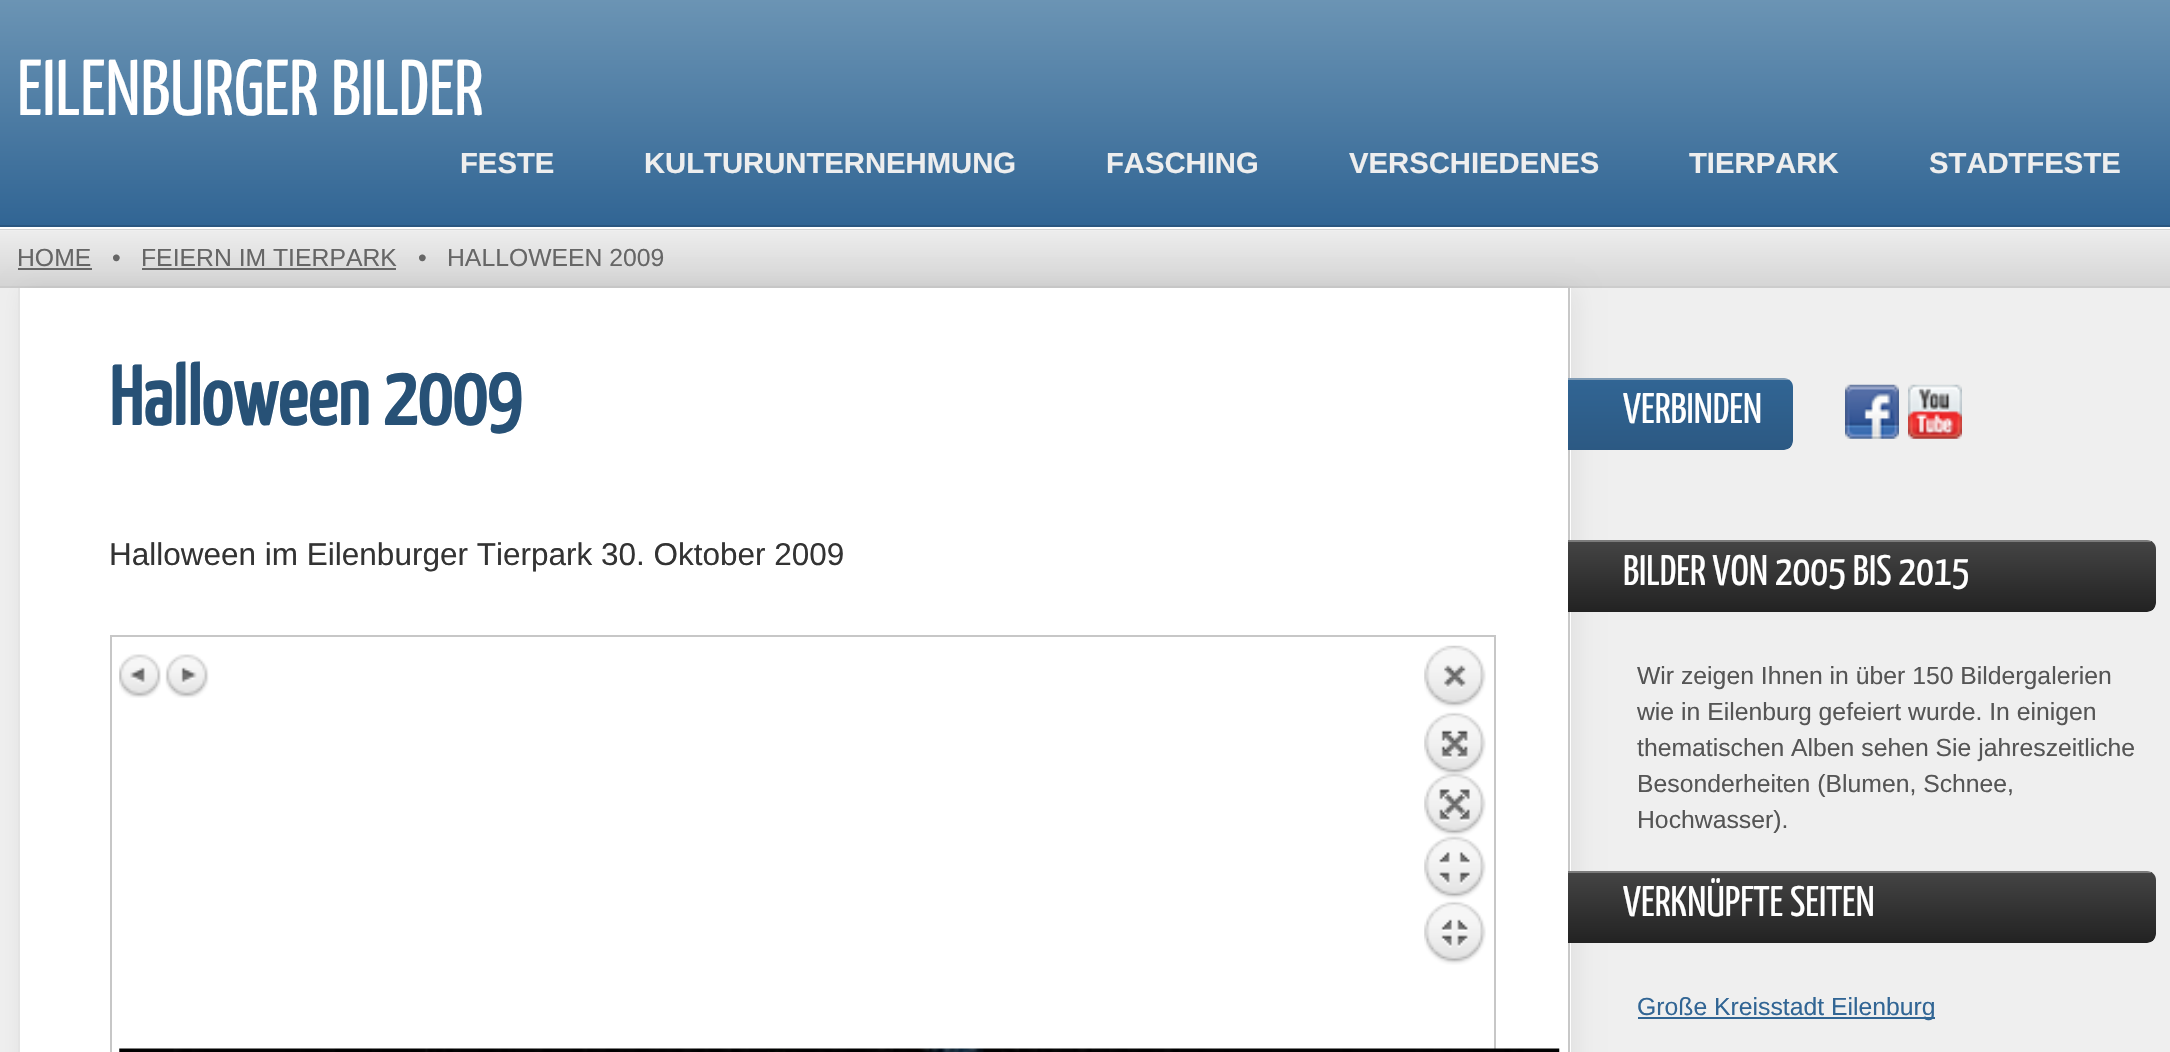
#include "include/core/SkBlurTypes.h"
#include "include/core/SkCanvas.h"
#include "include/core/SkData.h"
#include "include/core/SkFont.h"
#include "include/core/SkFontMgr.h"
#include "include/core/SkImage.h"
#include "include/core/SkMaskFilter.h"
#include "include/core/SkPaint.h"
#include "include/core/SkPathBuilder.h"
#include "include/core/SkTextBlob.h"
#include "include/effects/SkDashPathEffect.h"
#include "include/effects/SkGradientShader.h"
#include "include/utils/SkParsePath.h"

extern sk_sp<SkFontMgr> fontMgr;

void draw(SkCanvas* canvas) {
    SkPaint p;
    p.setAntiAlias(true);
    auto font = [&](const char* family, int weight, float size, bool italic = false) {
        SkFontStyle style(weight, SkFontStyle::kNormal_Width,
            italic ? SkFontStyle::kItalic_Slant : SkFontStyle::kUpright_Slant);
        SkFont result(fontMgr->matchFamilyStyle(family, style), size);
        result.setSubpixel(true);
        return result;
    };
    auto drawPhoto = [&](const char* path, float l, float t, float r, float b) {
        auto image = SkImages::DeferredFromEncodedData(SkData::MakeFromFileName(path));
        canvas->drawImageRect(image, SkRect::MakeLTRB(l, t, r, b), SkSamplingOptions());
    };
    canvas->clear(0xFFEFEFEF);
    {
        const SkColor colors[] = {0xFF6B94B4, 0xFF316594};
        const float stops[] = {0, 1};
        const SkPoint ends[] = {{0, 0}, {0, 225}};
        p.setShader(SkGradientShader::MakeLinear(ends, colors, stops, 2, SkTileMode::kClamp));
        p.setAlpha(255);
    }
    canvas->drawRect(SkRect::MakeLTRB(0, 0, 2170, 225), p);
    p.setShader(nullptr);
    p.setColor(0xFF2B5780);
    canvas->drawRect(SkRect::MakeLTRB(0, 225, 2170, 227), p);
    auto font1 = font("Yanone Kaffeesatz", 200, 78.75f);
    p.setColor(0xFFFFFFFF);
    canvas->drawString("EILENBURGER BILDER", 17, 115, font1, p);
    auto font2 = font("Liberation Sans", 700, 29.25f);
    p.setColor(0xFFEEEEEE);
    {
        const struct { const char* s; float x, y; } items[] = {
            {"FESTE", 460, 173},
            {"KULTURUNTERNEHMUNG", 644, 173},
            {"FASCHING", 1106, 173},
            {"VERSCHIEDENES", 1349, 173},
            {"TIERPARK", 1689, 173},
            {"STADTFESTE", 1929, 173},
        };
        for (auto [s, x, y] : items) {
            canvas->drawString(s, x, y, font2, p);
        }
    }
    {
        const SkColor colors[] = {0xFFEDEDED, 0xFFD5D5D5};
        const float stops[] = {0, 1};
        const SkPoint ends[] = {{0, 173}, {0, 230}};
        p.setShader(SkGradientShader::MakeLinear(ends, colors, stops, 2, SkTileMode::kClamp));
        p.setAlpha(255);
    }
    canvas->drawRect(SkRect::MakeLTRB(0, 229, 2170, 230), p);
    {
        const SkColor colors[] = {0xFFEDEDED, 0xFFD5D5D5};
        const float stops[] = {0, 1};
        const SkPoint ends[] = {{0, 230}, {0, 286}};
        p.setShader(SkGradientShader::MakeLinear(ends, colors, stops, 2, SkTileMode::kClamp));
        p.setAlpha(255);
    }
    canvas->drawRect(SkRect::MakeLTRB(0, 231, 2170, 286), p);
    p.setShader(nullptr);
    p.setColor(0xFFFFFFFF);
    canvas->drawRect(SkRect::MakeLTRB(0, 227, 2170, 229), p);
    p.setColor(0xFFCCCCCC);
    canvas->drawRect(SkRect::MakeLTRB(0, 286, 2170, 288), p);
    auto font3 = font("Liberation Sans", 400, 24.75f);
    p.setColor(0xFF666666);
    canvas->drawString("HOME", 17, 266, font3, p);
    canvas->drawRect(SkRect::MakeLTRB(18, 268, 92, 270), p);
    canvas->drawString("•", 112, 266, font3, p);
    canvas->drawString("FEIERN IM TIERPARK", 141, 266, font3, p);
    canvas->drawRect(SkRect::MakeLTRB(142, 268, 396, 270), p);
    canvas->drawString("•", 418, 266, font3, p);
    canvas->drawString("HALLOWEEN 2009", 447, 266, font3, p);
    p.setColor(0x12000000);
    p.setMaskFilter(SkMaskFilter::MakeBlur(kNormal_SkBlurStyle, 11));
    canvas->drawRect(SkRect::MakeLTRB(23, 290, 1575, 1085), p);
    p.setMaskFilter(nullptr);
    {
        const struct { float l, t, r, b; SkColor color; } items[] = {
            {20, 288, 1571, 1052, 0xFFFFFFFF},
            {1568, 288, 1570, 1052, 0xFFC8C8C8},
            {18, 288, 20, 1052, 0xFFE4E4E4},
        };
        for (auto [l, t, r, b, color] : items) {
            p.setColor(color);
            canvas->drawRect(SkRect::MakeLTRB(l, t, r, b), p);
        }
    }
    auto font4 = font("Yanone Kaffeesatz", 700, 83.25f);
    p.setColor(0xFF275176);
    canvas->drawString("Halloween 2009", 109, 425, font4, p);
    auto font5 = font("Liberation Sans", 400, 31.5f);
    p.setColor(0xFF333333);
    canvas->drawString("Halloween im Eilenburger Tierpark 30. Oktober 2009", 109, 565, font5, p);
    p.setStyle(SkPaint::kStroke_Style);
    p.setStrokeWidth(2);
    p.setColor(0xFFC7C7C7);
    canvas->drawRect(SkRect::MakeLTRB(111, 636, 1495, 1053), p);
    drawPhoto("media/1.png", 119, 654, 161, 698);
    drawPhoto("media/2.png", 165, 654, 209, 698);
    drawPhoto("media/3.png", 1424, 645, 1486, 965);
    drawPhoto("media/4.png", 119, 1048, 1560, 1052);
    canvas->save();
    canvas->clipPath(SkPathBuilder().moveTo(1568, 378).lineTo(1784, 378).cubicTo(1789, 378, 1793, 382, 1793, 387).lineTo(1793, 441).cubicTo(1793, 446, 1789, 450, 1784, 450).lineTo(1568, 450).close().detach(), true);
    p.setStyle(SkPaint::kFill_Style);
    {
        const SkColor colors[] = {0xFF316594, 0xFF2C5983};
        const float stops[] = {0, 1};
        const SkPoint ends[] = {{1568, 311}, {1568, 380}};
        p.setShader(SkGradientShader::MakeLinear(ends, colors, stops, 2, SkTileMode::kClamp));
        p.setAlpha(255);
    }
    canvas->drawRect(SkRect::MakeLTRB(1568, 378, 1793, 380), p);
    {
        const SkColor colors[] = {0xFF316594, 0xFF2C5983};
        const float stops[] = {0, 1};
        const SkPoint ends[] = {{1568, 380}, {1568, 450}};
        p.setShader(SkGradientShader::MakeLinear(ends, colors, stops, 2, SkTileMode::kClamp));
        p.setAlpha(255);
    }
    canvas->drawPath(SkPathBuilder().moveTo(1568, 380).lineTo(1793, 380).lineTo(1793, 441).cubicTo(1793, 446, 1789, 450, 1784, 450).lineTo(1568, 450).close().detach(), p);
    canvas->restore();
    p.setShader(nullptr);
    p.setColor(0x66FFFFFF);
    canvas->drawRect(SkRect::MakeLTRB(1568, 378, 1789, 380), p);
    auto font6 = font("Yanone Kaffeesatz", 200, 42.75f);
    p.setColor(0xFFFFFFFF);
    canvas->drawString("VERBINDEN", 1623, 423, font6, p);
    drawPhoto("media/5.png", 1845, 384, 1899, 439);
    drawPhoto("media/6.png", 1908, 384, 1962, 439);
    canvas->save();
    canvas->clipPath(SkPathBuilder().moveTo(1568, 540).lineTo(2147, 540).cubicTo(2152, 540, 2156, 544, 2156, 549).lineTo(2156, 603).cubicTo(2156, 608, 2152, 612, 2147, 612).lineTo(1568, 612).close().detach(), true);
    {
        const SkColor colors[] = {0xFF444444, 0xFF222222};
        const float stops[] = {0, 1};
        const SkPoint ends[] = {{1568, 473}, {1568, 542}};
        p.setShader(SkGradientShader::MakeLinear(ends, colors, stops, 2, SkTileMode::kClamp));
        p.setAlpha(255);
    }
    canvas->drawRect(SkRect::MakeLTRB(1568, 540, 2156, 542), p);
    {
        const SkColor colors[] = {0xFF444444, 0xFF222222};
        const float stops[] = {0, 1};
        const SkPoint ends[] = {{1568, 542}, {1568, 612}};
        p.setShader(SkGradientShader::MakeLinear(ends, colors, stops, 2, SkTileMode::kClamp));
        p.setAlpha(255);
    }
    canvas->drawPath(SkPathBuilder().moveTo(1568, 542).lineTo(2156, 542).lineTo(2156, 603).cubicTo(2156, 608, 2152, 612, 2147, 612).lineTo(1568, 612).close().detach(), p);
    canvas->restore();
    p.setShader(nullptr);
    p.setColor(0x66FFFFFF);
    canvas->drawRect(SkRect::MakeLTRB(1568, 540, 2151, 542), p);
    p.setColor(0xFFFFFFFF);
    canvas->drawString("BILDER VON 2005 BIS 2015", 1623, 585, font6, p);
    p.setColor(0xFF555555);
    {
        const struct { const char* s; float x, y; } items[] = {
            {"Wir zeigen Ihnen in über 150 Bildergalerien", 1637, 684},
            {"wie in Eilenburg gefeiert wurde. In einigen", 1637, 720},
            {"thematischen Alben sehen Sie jahreszeitliche", 1637, 756},
            {"Besonderheiten (Blumen, Schnee,", 1637, 792},
            {"Hochwasser).", 1637, 828},
        };
        for (auto [s, x, y] : items) {
            canvas->drawString(s, x, y, font3, p);
        }
    }
    canvas->save();
    canvas->clipPath(SkPathBuilder().moveTo(1568, 871).lineTo(2147, 871).cubicTo(2152, 871, 2156, 875, 2156, 880).lineTo(2156, 934).cubicTo(2156, 939, 2152, 943, 2147, 943).lineTo(1568, 943).close().detach(), true);
    {
        const SkColor colors[] = {0xFF444444, 0xFF222222};
        const float stops[] = {0, 1};
        const SkPoint ends[] = {{1568, 803}, {1568, 873}};
        p.setShader(SkGradientShader::MakeLinear(ends, colors, stops, 2, SkTileMode::kClamp));
        p.setAlpha(255);
    }
    canvas->drawRect(SkRect::MakeLTRB(1568, 871, 2156, 873), p);
    {
        const SkColor colors[] = {0xFF444444, 0xFF222222};
        const float stops[] = {0, 1};
        const SkPoint ends[] = {{1568, 873}, {1568, 943}};
        p.setShader(SkGradientShader::MakeLinear(ends, colors, stops, 2, SkTileMode::kClamp));
        p.setAlpha(255);
    }
    canvas->drawPath(SkPathBuilder().moveTo(1568, 873).lineTo(2156, 873).lineTo(2156, 934).cubicTo(2156, 939, 2152, 943, 2147, 943).lineTo(1568, 943).close().detach(), p);
    canvas->restore();
    p.setShader(nullptr);
    p.setColor(0x66FFFFFF);
    canvas->drawRect(SkRect::MakeLTRB(1568, 871, 2151, 873), p);
    p.setColor(0xFFFFFFFF);
    canvas->drawString("VERKNÜPFTE SEITEN", 1623, 916, font6, p);
    p.setColor(0xFF316594);
    canvas->drawRect(SkRect::MakeLTRB(1638, 1017, 1935, 1019), p);
    canvas->drawString("Große Kreisstadt Eilenburg", 1637, 1015, font3, p);
}
